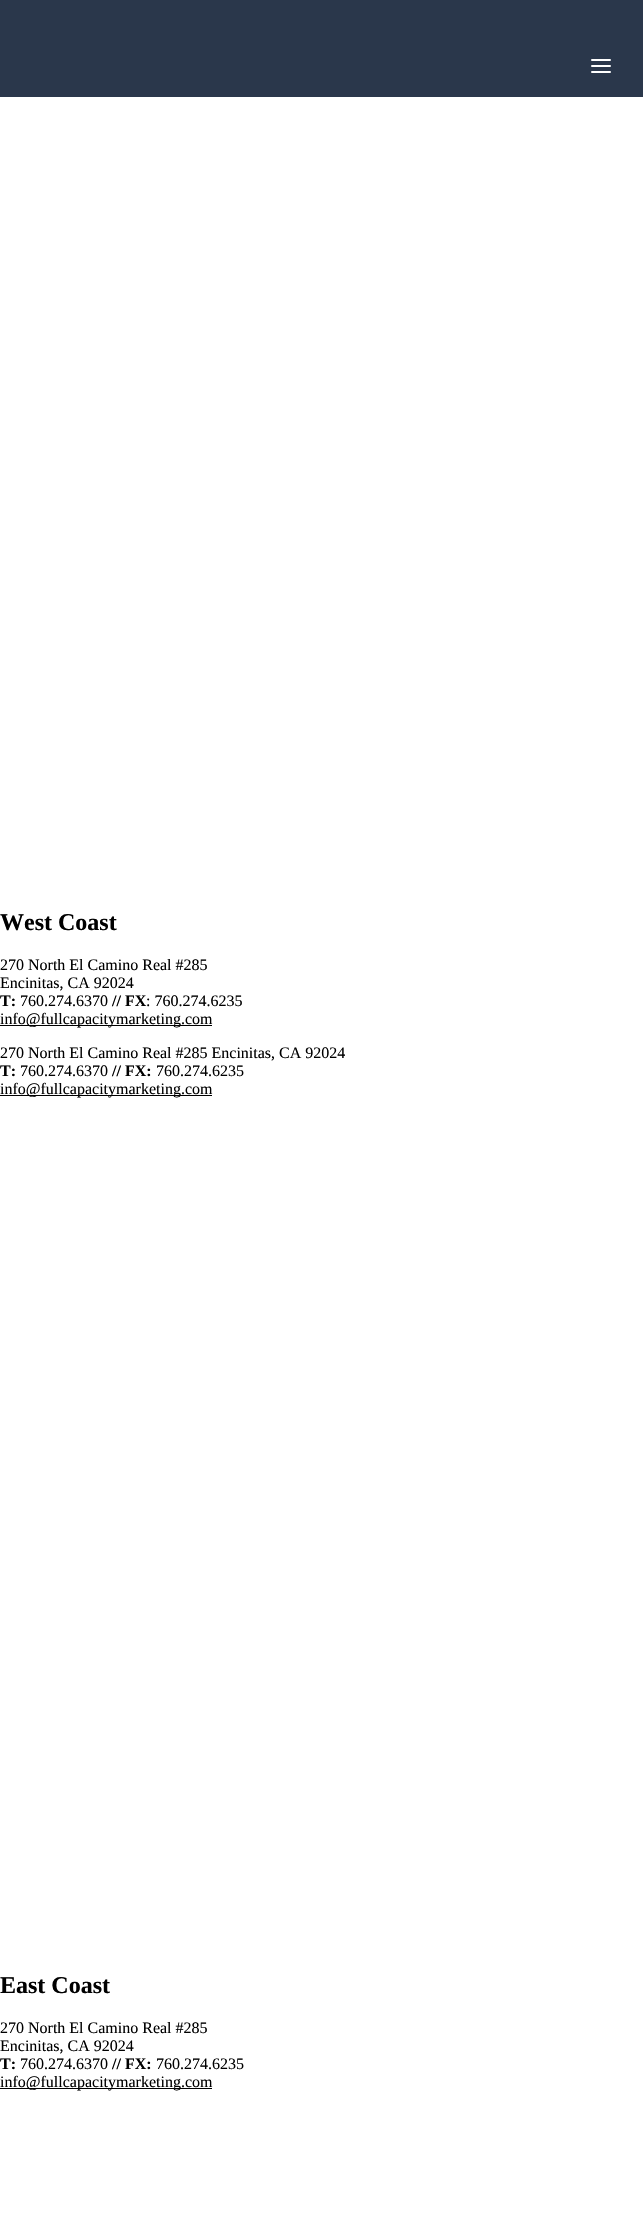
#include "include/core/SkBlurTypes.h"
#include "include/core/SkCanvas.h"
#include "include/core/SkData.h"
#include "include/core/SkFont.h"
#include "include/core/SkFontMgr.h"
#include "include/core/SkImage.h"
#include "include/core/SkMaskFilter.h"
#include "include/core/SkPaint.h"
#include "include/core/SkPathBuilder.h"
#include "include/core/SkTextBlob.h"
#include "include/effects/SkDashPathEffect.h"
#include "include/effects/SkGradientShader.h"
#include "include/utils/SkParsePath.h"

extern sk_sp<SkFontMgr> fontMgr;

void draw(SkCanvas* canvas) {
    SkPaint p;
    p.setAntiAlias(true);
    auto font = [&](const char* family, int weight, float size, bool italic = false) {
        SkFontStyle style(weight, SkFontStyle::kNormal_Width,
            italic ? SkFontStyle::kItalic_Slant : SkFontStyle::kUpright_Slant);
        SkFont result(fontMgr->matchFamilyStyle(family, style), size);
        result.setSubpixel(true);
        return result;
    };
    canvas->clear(0xFFFFFFFF);
    p.setColor(0xFF2A374B);
    canvas->drawRect(SkRect::MakeLTRB(0, 0, 643, 97), p);
    p.setStyle(SkPaint::kStroke_Style);
    p.setStrokeWidth(2);
    p.setStrokeCap(SkPaint::kRound_Cap);
    p.setColor(0xFFFFFFFF);
    canvas->drawPath(SkPathBuilder().moveTo(592, 66).lineTo(610, 66).moveTo(592, 60).lineTo(610, 60).moveTo(592, 72).lineTo(610, 72).detach(), p);
    auto font1 = font("Liberation Serif", 700, 24);
    p.setStyle(SkPaint::kFill_Style);
    p.setColor(0xFF000000);
    canvas->drawString("West Coast", 0, 930, font1, p);
    auto font2 = font("Liberation Serif", 400, 16);
    canvas->drawString("270 North El Camino Real #285", 0, 970, font2, p);
    canvas->drawString("Encinitas, CA 92024", 0, 988, font2, p);
    auto font3 = font("Liberation Serif", 700, 16);
    canvas->drawString("T:", 0, 1006, font3, p);
    canvas->drawString("760.274.6370", 20, 1006, font2, p);
    canvas->drawString("// FX", 112, 1006, font3, p);
    canvas->drawString(": 760.274.6235", 146, 1006, font2, p);
    canvas->drawRect(SkRect::MakeLTRB(0, 1025, 212, 1026), p);
    canvas->drawString("info@fullcapacitymarketing.com", 0, 1024, font2, p);
    canvas->drawString("270 North El Camino Real #285 Encinitas, CA 92024", 0, 1058, font2, p);
    canvas->drawString("T:", 0, 1076, font3, p);
    canvas->drawString("760.274.6370", 20, 1076, font2, p);
    canvas->drawString("// FX:", 112, 1076, font3, p);
    canvas->drawString("760.274.6235", 156, 1076, font2, p);
    canvas->drawRect(SkRect::MakeLTRB(0, 1095, 212, 1096), p);
    canvas->drawString("info@fullcapacitymarketing.com", 0, 1094, font2, p);
    canvas->drawString("East Coast", 0, 1993, font1, p);
    canvas->drawString("270 North El Camino Real #285", 0, 2033, font2, p);
    canvas->drawString("Encinitas, CA 92024", 0, 2051, font2, p);
    canvas->drawString("T:", 0, 2069, font3, p);
    canvas->drawString("760.274.6370", 20, 2069, font2, p);
    canvas->drawString("// FX:", 112, 2069, font3, p);
    canvas->drawString("760.274.6235", 156, 2069, font2, p);
    canvas->drawRect(SkRect::MakeLTRB(0, 2088, 212, 2089), p);
    canvas->drawString("info@fullcapacitymarketing.com", 0, 2087, font2, p);
}
